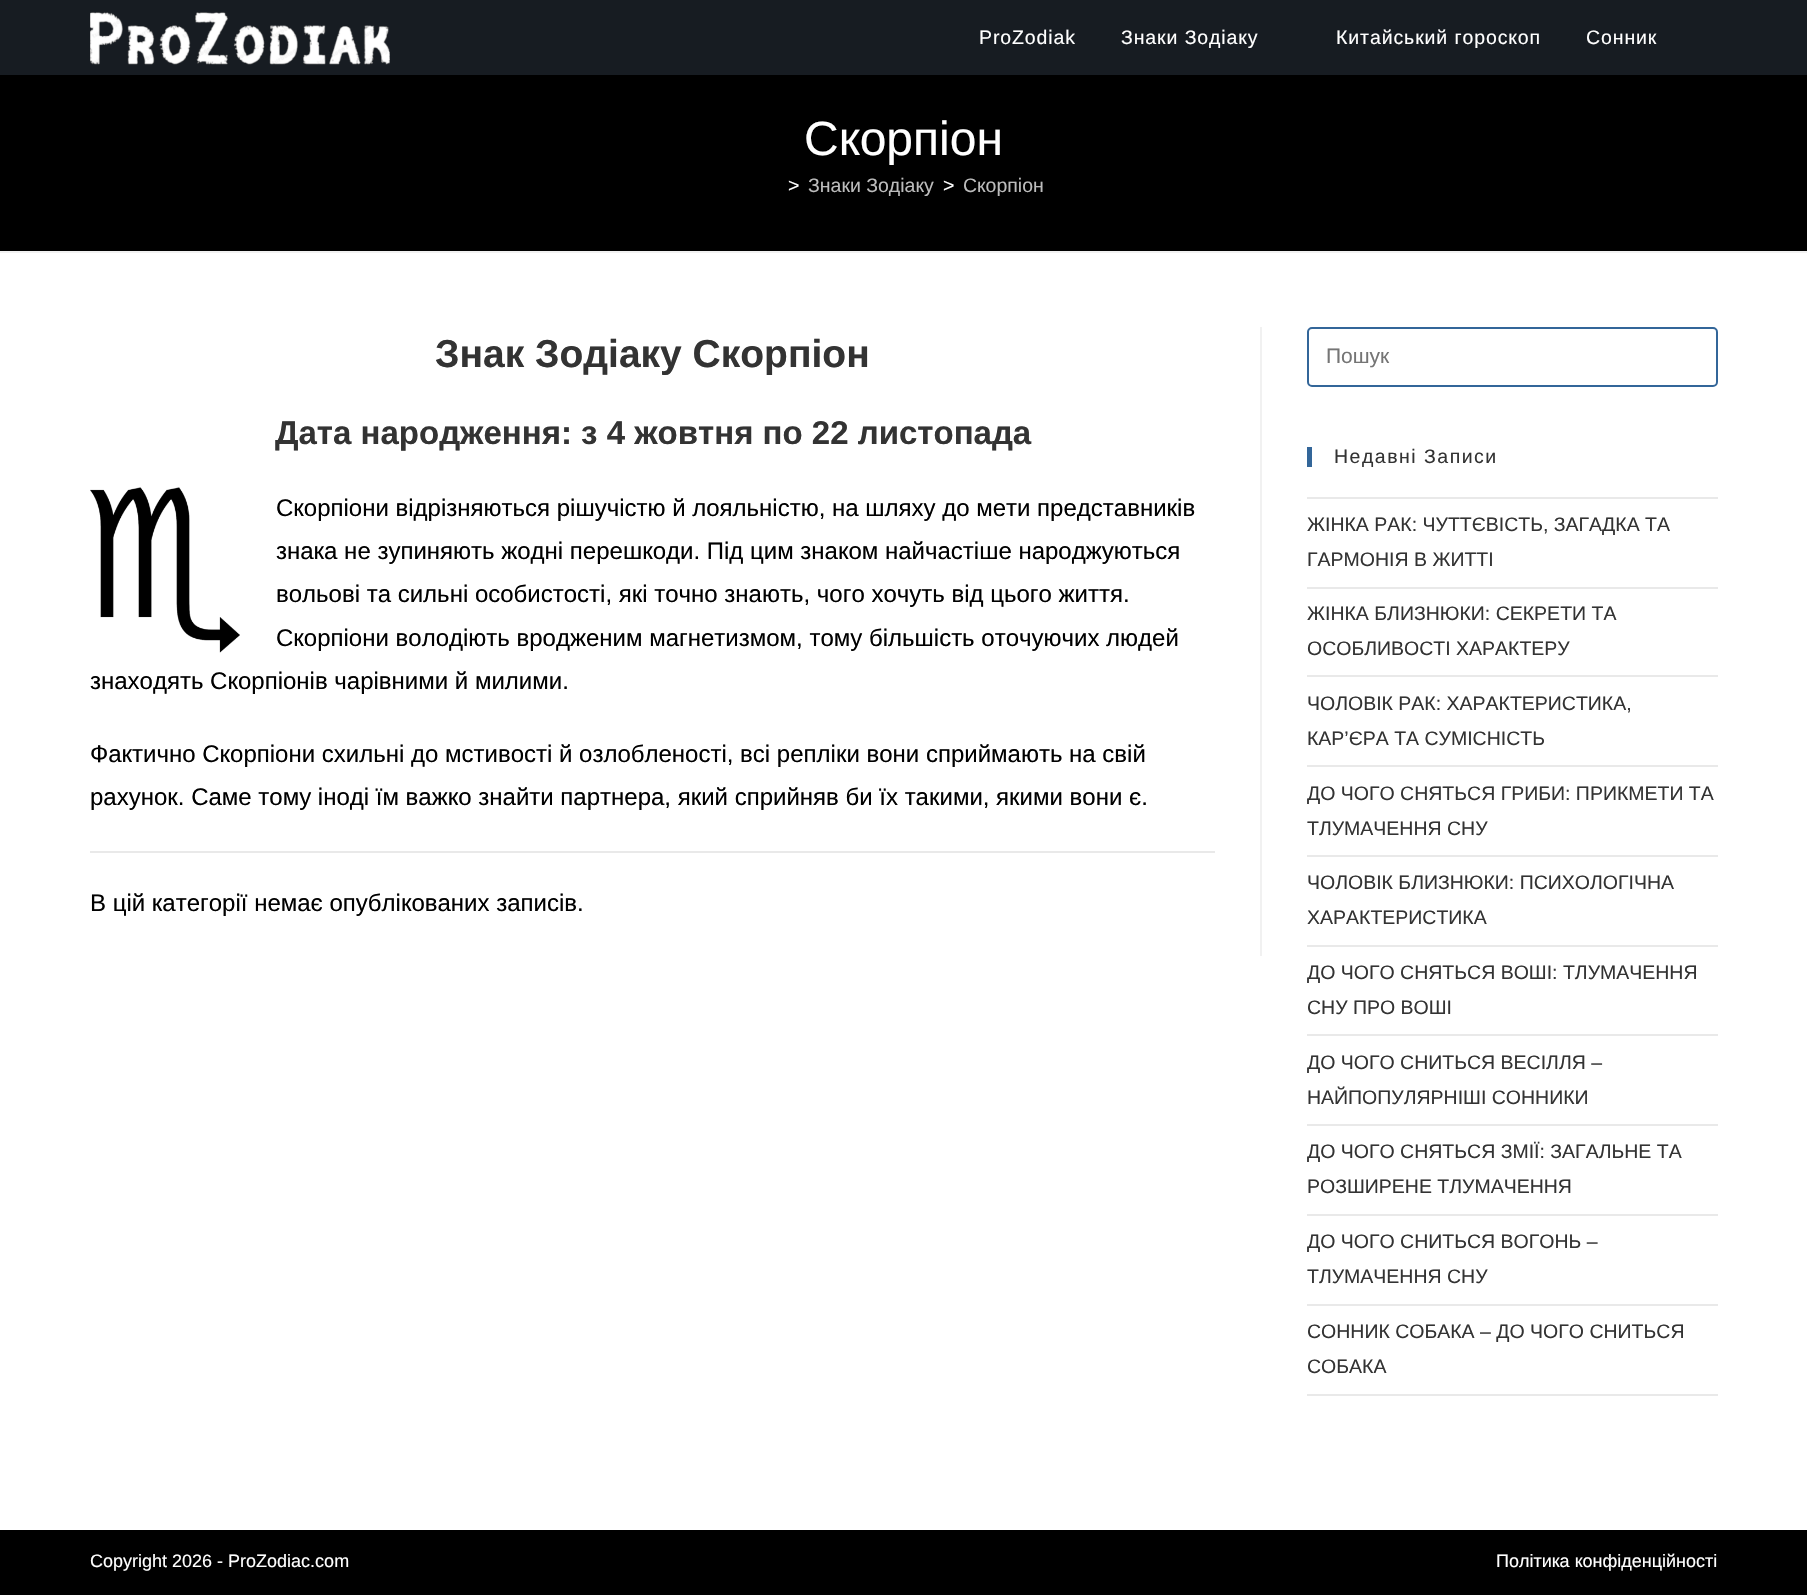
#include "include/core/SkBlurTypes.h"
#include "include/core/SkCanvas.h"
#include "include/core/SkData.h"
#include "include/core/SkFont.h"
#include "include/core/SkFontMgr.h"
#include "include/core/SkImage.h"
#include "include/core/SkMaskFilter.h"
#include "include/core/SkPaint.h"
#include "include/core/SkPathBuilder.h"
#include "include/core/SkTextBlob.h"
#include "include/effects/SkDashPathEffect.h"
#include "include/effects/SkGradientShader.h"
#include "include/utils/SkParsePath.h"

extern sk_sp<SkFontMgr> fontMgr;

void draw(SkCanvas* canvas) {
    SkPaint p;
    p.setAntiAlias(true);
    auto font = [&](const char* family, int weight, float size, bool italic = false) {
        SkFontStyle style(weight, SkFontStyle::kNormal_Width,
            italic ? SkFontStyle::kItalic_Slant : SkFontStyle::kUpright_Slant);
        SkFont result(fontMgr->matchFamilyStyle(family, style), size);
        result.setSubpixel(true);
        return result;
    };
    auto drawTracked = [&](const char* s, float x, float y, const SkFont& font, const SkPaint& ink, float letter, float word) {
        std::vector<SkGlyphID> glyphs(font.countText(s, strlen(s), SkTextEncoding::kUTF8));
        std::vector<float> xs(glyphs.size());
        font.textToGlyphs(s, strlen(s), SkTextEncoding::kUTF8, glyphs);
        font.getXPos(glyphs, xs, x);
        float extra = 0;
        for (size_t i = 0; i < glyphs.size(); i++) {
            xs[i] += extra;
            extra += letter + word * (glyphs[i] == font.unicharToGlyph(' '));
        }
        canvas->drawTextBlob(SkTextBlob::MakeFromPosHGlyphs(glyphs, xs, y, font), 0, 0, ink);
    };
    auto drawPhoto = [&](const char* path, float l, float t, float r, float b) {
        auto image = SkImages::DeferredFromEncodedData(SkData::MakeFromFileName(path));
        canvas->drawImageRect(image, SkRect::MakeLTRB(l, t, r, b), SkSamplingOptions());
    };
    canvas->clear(0xFFFFFFFF);
    p.setColor(0xFF171C22);
    canvas->drawRect(SkRect::MakeLTRB(0, 0, 1807, 75), p);
    drawPhoto("media/1.png", 90, 12, 390, 65);
    auto font1 = font("Liberation Sans", 400, 19.5f);
    p.setColor(0xFFFFFFFF);
    {
        const struct { const char* s; float x, y; } items[] = {
            {"ProZodiak", 979, 44},
            {"Знаки Зодіаку", 1121, 44},
            {"Китайський гороскоп", 1336, 44},
            {"Сонник", 1586, 44},
        };
        for (auto [s, x, y] : items) {
            drawTracked(s, x, y, font1, p, 0.9f, 0);
        }
    }
    p.setColor(0xFF000000);
    canvas->drawRect(SkRect::MakeLTRB(0, 75, 1807, 251), p);
    p.setColor(0xFFF1F1F1);
    canvas->drawRect(SkRect::MakeLTRB(0, 251, 1807, 253), p);
    auto font2 = font("Liberation Sans", 400, 48);
    p.setColor(0xFFFFFFFF);
    canvas->drawString("Скорпіон", 804, 155, font2, p);
    canvas->drawString(">", 788, 192, font1, p);
    p.setColor(0xFFBCBCBC);
    canvas->drawString("Знаки Зодіаку", 808, 192, font1, p);
    p.setColor(0xFFFFFFFF);
    canvas->drawString(">", 943, 192, font1, p);
    p.setColor(0xFFBCBCBC);
    canvas->drawString("Скорпіон", 963, 192, font1, p);
    p.setColor(0xFFF1F1F1);
    canvas->drawRect(SkRect::MakeLTRB(1260, 327, 1262, 956), p);
    auto font3 = font("Liberation Sans", 700, 39);
    p.setColor(0xFF333333);
    canvas->drawString("Знак Зодіаку Скорпіон", 435, 367, font3, p);
    auto font4 = font("Liberation Sans", 700, 33);
    canvas->drawString("Дата народження: з 4 жовтня по 22 листопада", 275, 444, font4, p);
    drawPhoto("media/2.png", 90, 487, 240, 653);
    auto font5 = font("Liberation Sans", 400, 24);
    p.setColor(0xFF000000);
    {
        const struct { const char* s; float x, y; } items[] = {
            {"Скорпіони відрізняються рішучістю й лояльністю, на шляху до мети представників", 276, 516},
            {"знака не зупиняють жодні перешкоди. Під цим знаком найчастіше народжуються", 276, 559},
            {"вольові та сильні особистості, які точно знають, чого хочуть від цього життя.", 276, 602},
            {"Скорпіони володіють вродженим магнетизмом, тому більшість оточуючих людей", 276, 646},
            {"знаходять Скорпіонів чарівними й милими.", 90, 689},
            {"Фактично Скорпіони схильні до мстивості й озлобленості, всі репліки вони сприймають на свій", 90, 762},
            {"рахунок. Саме тому іноді їм важко знайти партнера, який сприйняв би їх такими, якими вони є.", 90, 805},
        };
        for (auto [s, x, y] : items) {
            canvas->drawString(s, x, y, font5, p);
        }
    }
    p.setColor(0xFFE9E9E9);
    canvas->drawRect(SkRect::MakeLTRB(90, 851, 1215, 853), p);
    p.setColor(0xFF000000);
    canvas->drawString("В цій категорії немає опублікованих записів.", 90, 911, font5, p);
    p.setStyle(SkPaint::kStroke_Style);
    p.setStrokeWidth(2);
    p.setColor(0xFF336699);
    canvas->drawRoundRect(SkRect::MakeLTRB(1308, 328, 1717, 386), 4, 4, p);
    auto font6 = font("Liberation Sans", 400, 21);
    p.setStyle(SkPaint::kFill_Style);
    p.setColor(0xFF757575);
    canvas->drawString("Пошук", 1326, 363, font6, p);
    p.setColor(0xFF336699);
    canvas->drawRect(SkRect::MakeLTRB(1307, 447, 1312, 467), p);
    p.setColor(0xFF333333);
    drawTracked("Недавні Записи", 1334, 463, font1, p, 1.5f, 0);
    p.setColor(0xFFE9E9E9);
    canvas->drawRect(SkRect::MakeLTRB(1307, 497, 1718, 499), p);
    canvas->drawRect(SkRect::MakeLTRB(1307, 587, 1718, 589), p);
    p.setColor(0xFF333333);
    canvas->drawString("ЖІНКА РАК: ЧУТТЄВІСТЬ, ЗАГАДКА ТА", 1307, 531, font1, p);
    canvas->drawString("ГАРМОНІЯ В ЖИТТІ", 1307, 566, font1, p);
    p.setColor(0xFFE9E9E9);
    canvas->drawRect(SkRect::MakeLTRB(1307, 675, 1718, 677), p);
    p.setColor(0xFF333333);
    canvas->drawString("ЖІНКА БЛИЗНЮКИ: СЕКРЕТИ ТА", 1307, 620, font1, p);
    canvas->drawString("ОСОБЛИВОСТІ ХАРАКТЕРУ", 1307, 655, font1, p);
    p.setColor(0xFFE9E9E9);
    canvas->drawRect(SkRect::MakeLTRB(1307, 765, 1718, 767), p);
    p.setColor(0xFF333333);
    canvas->drawString("ЧОЛОВІК РАК: ХАРАКТЕРИСТИКА,", 1307, 710, font1, p);
    canvas->drawString("КАР’ЄРА ТА СУМІСНІСТЬ", 1307, 745, font1, p);
    p.setColor(0xFFE9E9E9);
    canvas->drawRect(SkRect::MakeLTRB(1307, 855, 1718, 857), p);
    p.setColor(0xFF333333);
    canvas->drawString("ДО ЧОГО СНЯТЬСЯ ГРИБИ: ПРИКМЕТИ ТА", 1307, 800, font1, p);
    canvas->drawString("ТЛУМАЧЕННЯ СНУ", 1307, 835, font1, p);
    p.setColor(0xFFE9E9E9);
    canvas->drawRect(SkRect::MakeLTRB(1307, 945, 1718, 947), p);
    p.setColor(0xFF333333);
    canvas->drawString("ЧОЛОВІК БЛИЗНЮКИ: ПСИХОЛОГІЧНА", 1307, 889, font1, p);
    canvas->drawString("ХАРАКТЕРИСТИКА", 1307, 924, font1, p);
    p.setColor(0xFFE9E9E9);
    canvas->drawRect(SkRect::MakeLTRB(1307, 1034, 1718, 1036), p);
    p.setColor(0xFF333333);
    canvas->drawString("ДО ЧОГО СНЯТЬСЯ ВОШІ: ТЛУМАЧЕННЯ", 1307, 979, font1, p);
    canvas->drawString("СНУ ПРО ВОШІ", 1307, 1014, font1, p);
    p.setColor(0xFFE9E9E9);
    canvas->drawRect(SkRect::MakeLTRB(1307, 1124, 1718, 1126), p);
    p.setColor(0xFF333333);
    canvas->drawString("ДО ЧОГО СНИТЬСЯ ВЕСІЛЛЯ –", 1307, 1069, font1, p);
    canvas->drawString("НАЙПОПУЛЯРНІШІ СОННИКИ", 1307, 1104, font1, p);
    p.setColor(0xFFE9E9E9);
    canvas->drawRect(SkRect::MakeLTRB(1307, 1214, 1718, 1216), p);
    p.setColor(0xFF333333);
    canvas->drawString("ДО ЧОГО СНЯТЬСЯ ЗМІЇ: ЗАГАЛЬНЕ ТА", 1307, 1158, font1, p);
    canvas->drawString("РОЗШИРЕНЕ ТЛУМАЧЕННЯ", 1307, 1193, font1, p);
    p.setColor(0xFFE9E9E9);
    canvas->drawRect(SkRect::MakeLTRB(1307, 1304, 1718, 1306), p);
    p.setColor(0xFF333333);
    canvas->drawString("ДО ЧОГО СНИТЬСЯ ВОГОНЬ –", 1307, 1248, font1, p);
    canvas->drawString("ТЛУМАЧЕННЯ СНУ", 1307, 1283, font1, p);
    p.setColor(0xFFE9E9E9);
    canvas->drawRect(SkRect::MakeLTRB(1307, 1394, 1718, 1396), p);
    p.setColor(0xFF333333);
    canvas->drawString("СОННИК СОБАКА – ДО ЧОГО СНИТЬСЯ", 1307, 1338, font1, p);
    canvas->drawString("СОБАКА", 1307, 1373, font1, p);
    p.setColor(0xFF000000);
    canvas->drawRect(SkRect::MakeLTRB(0, 1530, 1807, 1595), p);
    auto font7 = font("Liberation Sans", 400, 18);
    p.setColor(0xFFFFFFFF);
    canvas->drawString("Copyright 2026 - ProZodiac.com", 90, 1567, font7, p);
    canvas->drawString("Політика конфіденційності", 1496, 1567, font7, p);
}
